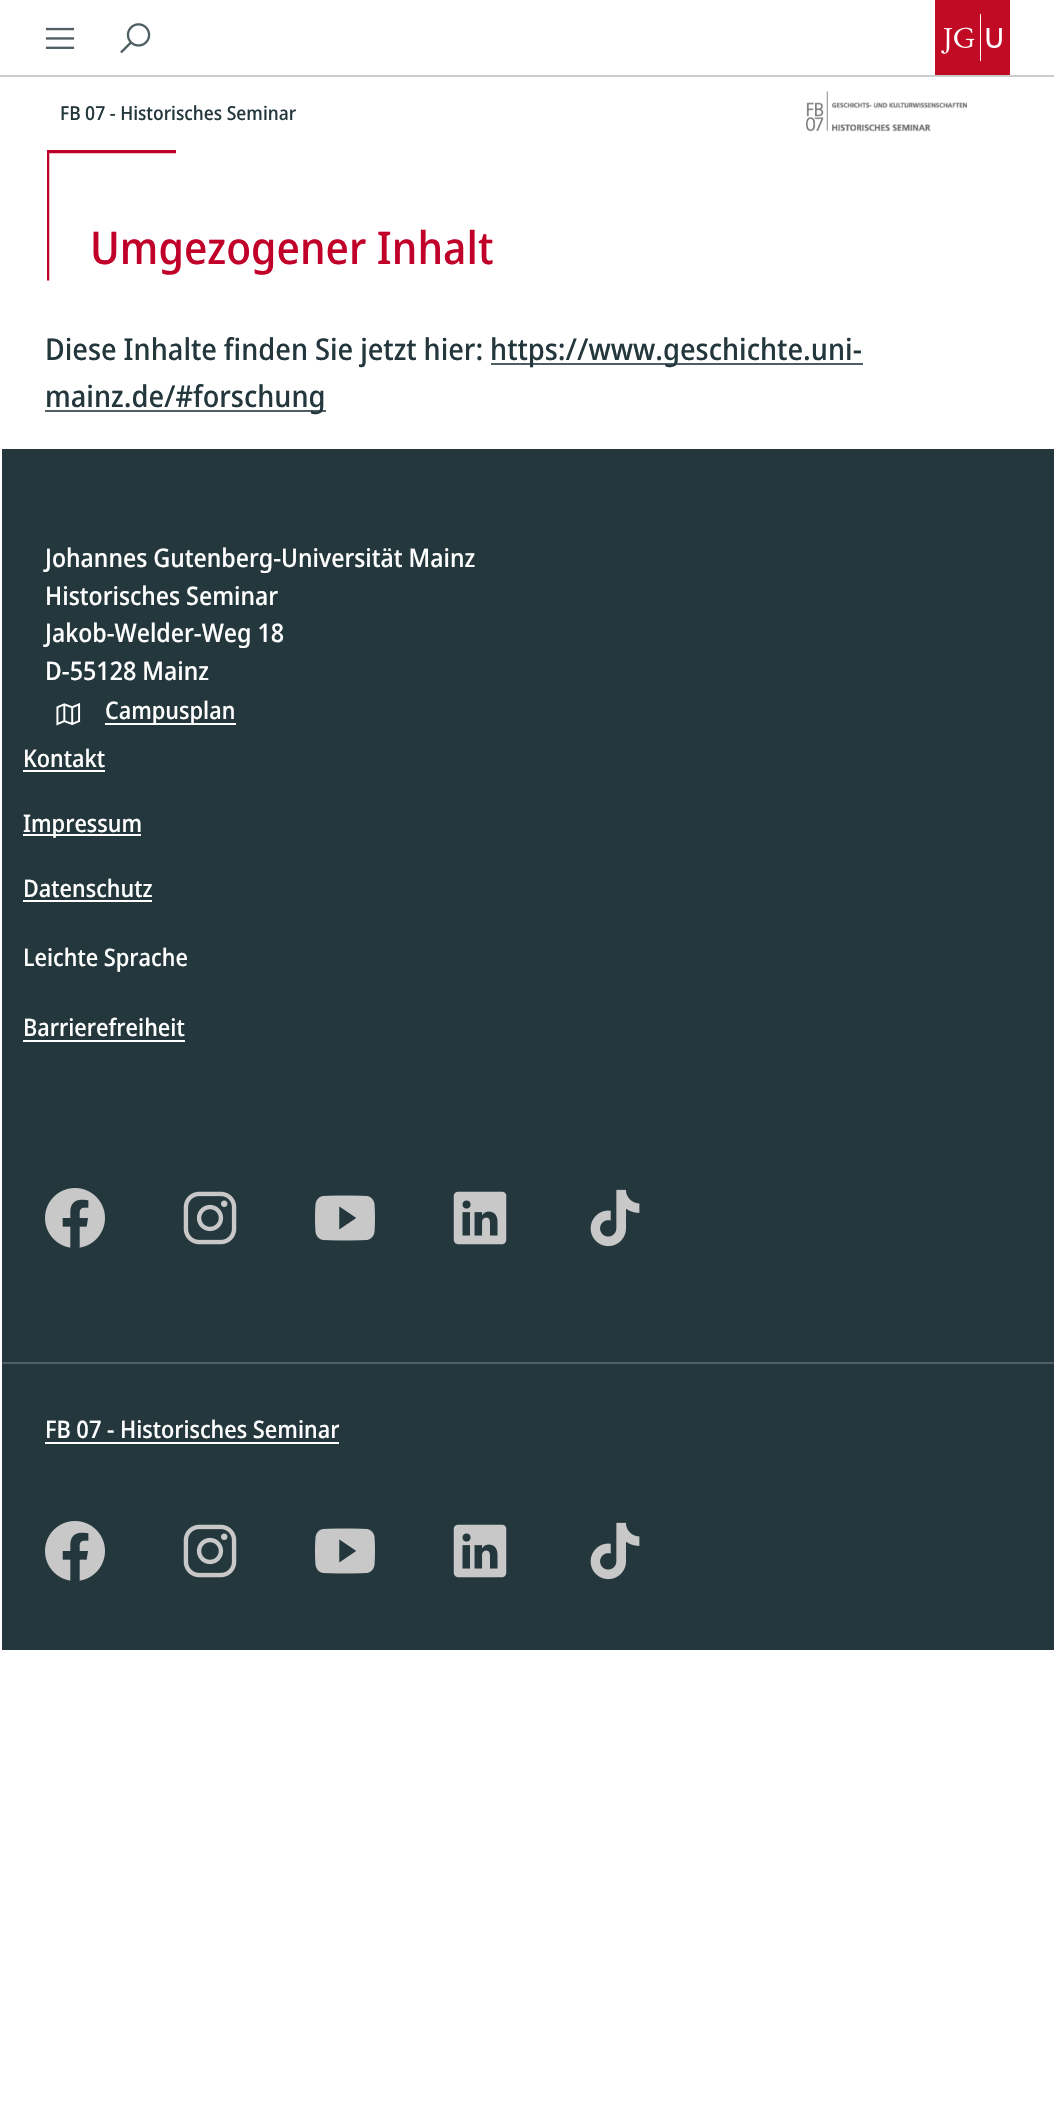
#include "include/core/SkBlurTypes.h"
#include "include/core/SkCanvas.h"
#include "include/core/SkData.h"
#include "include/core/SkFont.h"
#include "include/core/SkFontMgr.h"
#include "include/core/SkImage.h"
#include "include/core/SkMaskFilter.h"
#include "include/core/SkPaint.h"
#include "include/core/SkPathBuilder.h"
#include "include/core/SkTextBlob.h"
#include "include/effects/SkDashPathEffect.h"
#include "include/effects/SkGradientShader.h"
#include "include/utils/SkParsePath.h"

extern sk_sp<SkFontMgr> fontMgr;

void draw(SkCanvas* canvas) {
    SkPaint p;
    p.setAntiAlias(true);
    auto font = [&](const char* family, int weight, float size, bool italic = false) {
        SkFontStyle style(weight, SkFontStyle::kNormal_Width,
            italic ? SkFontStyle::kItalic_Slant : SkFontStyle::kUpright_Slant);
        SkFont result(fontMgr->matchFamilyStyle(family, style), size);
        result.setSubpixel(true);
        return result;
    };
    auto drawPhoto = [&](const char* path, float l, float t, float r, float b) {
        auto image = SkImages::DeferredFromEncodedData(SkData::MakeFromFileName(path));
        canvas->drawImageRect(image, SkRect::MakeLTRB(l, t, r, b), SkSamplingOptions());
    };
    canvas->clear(0xFFFFFFFF);
    drawPhoto("media/1.png", 45, 27, 75, 49);
    drawPhoto("media/2.png", 120, 23, 151, 54);
    drawPhoto("media/3.png", 935, 0, 1010, 75);
    p.setColor(0xFFC8CDCE);
    canvas->drawRect(SkRect::MakeLTRB(0, 75, 1054, 77), p);
    auto font1 = font("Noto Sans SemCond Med", 500, 19.25f);
    p.setColor(0xFF23373C);
    canvas->drawString("FB 07 - Historisches Seminar", 60, 120, font1, p);
    drawPhoto("media/4.png", 806, 91, 967, 132);
    canvas->save();
    canvas->clipRect(SkRect::MakeLTRB(47, 150, 177, 281));
    p.setStyle(SkPaint::kStroke_Style);
    p.setStrokeWidth(6.5f);
    p.setColor(0xFFC1002A);
    canvas->drawPath(SkPathBuilder().moveTo(46, 150).lineTo(176, 150).moveTo(46, 280.5f).lineTo(46, 150).detach(), p);
    canvas->restore();
    auto font2 = font("Noto Sans SemCond Med", 500, 45);
    p.setStyle(SkPaint::kFill_Style);
    canvas->drawString("Umgezogener Inhalt", 90, 264, font2, p);
    auto font3 = font("Noto Sans SemCond Med", 500, 30);
    p.setColor(0xFF23373C);
    canvas->drawString("Diese Inhalte finden Sie jetzt hier:", 45, 360, font3, p);
    p.setColor(0xFF4F5F63);
    canvas->drawRect(SkRect::MakeLTRB(491, 363, 863, 365), p);
    p.setColor(0xFF23373C);
    canvas->drawString("https://www.geschichte.uni-", 490, 360, font3, p);
    p.setColor(0xFF4F5F63);
    canvas->drawRect(SkRect::MakeLTRB(45, 410, 326, 412), p);
    p.setColor(0xFF23373C);
    canvas->drawString("mainz.de/#forschung", 45, 407, font3, p);
    canvas->drawRect(SkRect::MakeLTRB(2, 449, 1054, 1362), p);
    auto font4 = font("Noto Sans SemCond Med", 500, 25.5f);
    p.setColor(0xFFFFFFFF);
    {
        const struct { const char* s; float x, y; } items[] = {
            {"Johannes Gutenberg-Universität Mainz", 45, 567},
            {"Historisches Seminar", 45, 605},
            {"Jakob-Welder-Weg 18", 45, 642},
            {"D-55128 Mainz", 45, 680},
        };
        for (auto [s, x, y] : items) {
            canvas->drawString(s, x, y, font4, p);
        }
    }
    drawPhoto("media/5.png", 56, 703, 81, 726);
    canvas->drawRect(SkRect::MakeLTRB(105, 723, 236, 725), p);
    auto font5 = font("Noto Sans SemCond Med", 500, 24);
    canvas->drawString("Campusplan", 105, 719, font5, p);
    canvas->drawString("Kontakt", 23, 767, font5, p);
    canvas->drawRect(SkRect::MakeLTRB(23, 770, 105, 772), p);
    canvas->drawRect(SkRect::MakeLTRB(23, 834, 141, 836), p);
    canvas->drawString("Impressum", 23, 832, font5, p);
    canvas->drawString("Datenschutz", 23, 897, font5, p);
    canvas->drawRect(SkRect::MakeLTRB(23, 900, 152, 902), p);
    canvas->drawString("Leichte Sprache", 23, 966, font5, p);
    canvas->drawString("Barrierefreiheit", 23, 1036, font5, p);
    canvas->drawRect(SkRect::MakeLTRB(23, 1040, 185, 1042), p);
    drawPhoto("media/6.png", 45, 1188, 105, 1248);
    drawPhoto("media/7.png", 183, 1191, 237, 1245);
    drawPhoto("media/8.png", 315, 1195, 375, 1241);
    drawPhoto("media/9.png", 453, 1191, 507, 1245);
    drawPhoto("media/10.png", 590, 1189, 640, 1247);
    p.setColor(0xFF23373C);
    canvas->drawRect(SkRect::MakeLTRB(2, 1364, 1054, 1650), p);
    p.setColor(0xFF4F5F63);
    canvas->drawRect(SkRect::MakeLTRB(2, 1362, 1054, 1364), p);
    p.setColor(0xFFFFFFFF);
    canvas->drawString("FB 07 - Historisches Seminar", 45, 1438, font5, p);
    canvas->drawRect(SkRect::MakeLTRB(45, 1442, 339, 1444), p);
    drawPhoto("media/6.png", 45, 1521, 105, 1581);
    drawPhoto("media/7.png", 183, 1524, 237, 1578);
    drawPhoto("media/8.png", 315, 1528, 375, 1574);
    drawPhoto("media/9.png", 453, 1524, 507, 1578);
    drawPhoto("media/10.png", 590, 1522, 640, 1580);
}
